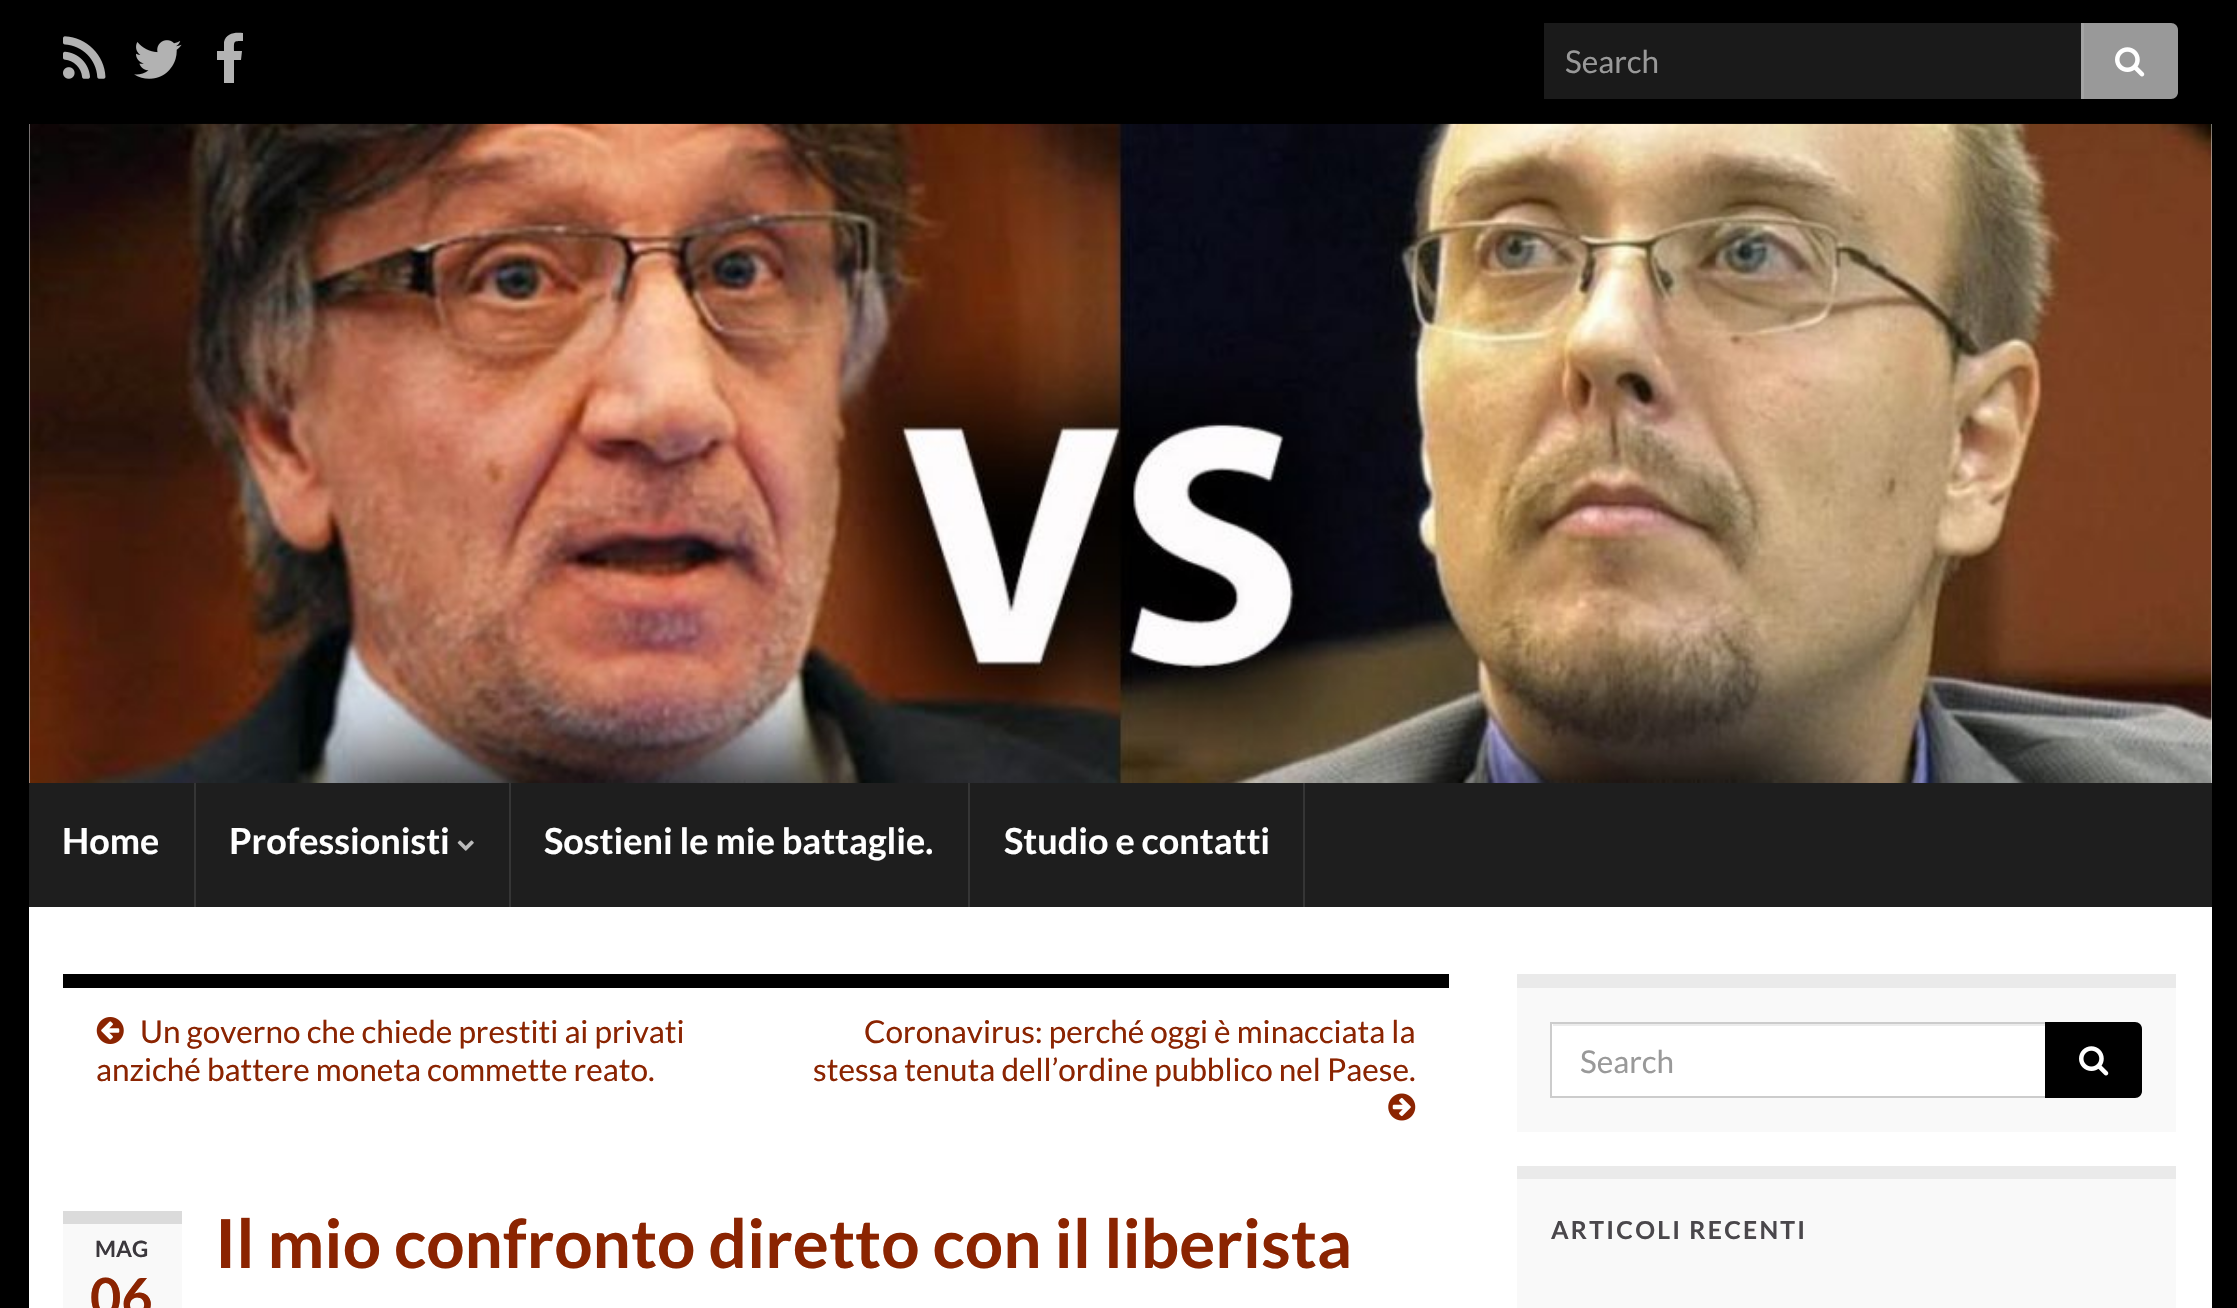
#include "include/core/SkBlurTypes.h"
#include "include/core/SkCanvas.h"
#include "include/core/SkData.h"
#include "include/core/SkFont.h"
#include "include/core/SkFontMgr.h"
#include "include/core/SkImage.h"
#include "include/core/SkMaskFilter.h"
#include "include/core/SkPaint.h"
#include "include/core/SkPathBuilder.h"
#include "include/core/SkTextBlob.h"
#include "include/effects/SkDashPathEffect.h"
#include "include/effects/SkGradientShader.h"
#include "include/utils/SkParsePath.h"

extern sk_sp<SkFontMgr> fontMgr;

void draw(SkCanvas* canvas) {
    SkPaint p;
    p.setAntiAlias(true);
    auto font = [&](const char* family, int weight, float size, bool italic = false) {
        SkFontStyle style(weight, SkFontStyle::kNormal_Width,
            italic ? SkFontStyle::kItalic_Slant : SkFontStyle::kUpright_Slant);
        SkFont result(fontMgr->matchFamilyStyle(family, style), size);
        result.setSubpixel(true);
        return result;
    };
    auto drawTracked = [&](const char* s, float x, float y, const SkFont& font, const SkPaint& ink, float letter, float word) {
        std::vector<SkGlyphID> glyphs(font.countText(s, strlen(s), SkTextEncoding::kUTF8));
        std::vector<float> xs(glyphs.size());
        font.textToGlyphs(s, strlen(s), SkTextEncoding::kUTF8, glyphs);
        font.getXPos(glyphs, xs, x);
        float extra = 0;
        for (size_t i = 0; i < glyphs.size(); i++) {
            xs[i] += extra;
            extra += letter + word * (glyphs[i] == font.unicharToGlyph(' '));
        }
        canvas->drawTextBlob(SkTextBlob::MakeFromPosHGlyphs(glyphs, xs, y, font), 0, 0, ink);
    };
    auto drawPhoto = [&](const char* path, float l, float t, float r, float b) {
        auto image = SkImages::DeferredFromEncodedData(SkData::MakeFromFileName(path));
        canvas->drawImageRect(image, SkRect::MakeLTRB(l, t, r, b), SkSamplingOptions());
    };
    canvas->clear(0xFF000000);
    p.setColor(0xFFFFFFFF);
    canvas->drawRect(SkRect::MakeLTRB(29, 124, 2212, 1308), p);
    drawPhoto("media/1.png", 63, 36, 106, 79);
    drawPhoto("media/2.png", 134, 40, 182, 79);
    p.setColor(0xFFB3B3B3);
    canvas->drawPath(SkPathBuilder().moveTo(243, 33).lineTo(243, 41).cubicTo(233, 41, 234, 41, 234, 51).lineTo(242, 51).lineTo(241, 60).lineTo(234, 60).lineTo(234, 83).lineTo(224, 83).lineTo(224, 60).lineTo(217, 60).lineTo(217, 51).lineTo(224, 51).lineTo(224, 42).cubicTo(226, 33, 235, 32, 243, 33).close().detach(), p);
    p.setColor(0xFF1A1A1A);
    canvas->drawRect(SkRect::MakeLTRB(1544, 23, 2084, 99), p);
    auto font1 = font("Lato", 400, 31.5f);
    p.setColor(0xFF999999);
    canvas->drawString("Search", 1565, 73, font1, p);
    p.setColor(0x99FFFFFF);
    canvas->drawPath(SkPathBuilder().moveTo(2081, 23).lineTo(2171, 23).cubicTo(2175, 23, 2178, 26, 2178, 30).lineTo(2178, 92).cubicTo(2178, 96, 2175, 99, 2171, 99).lineTo(2081, 99).close().detach(), p);
    drawPhoto("media/3.png", 2115, 47, 2145, 77);
    drawPhoto("media/4.png", 29, 123, 2212, 783);
    p.setColor(0xFF1E1E1E);
    canvas->drawRect(SkRect::MakeLTRB(29, 783, 2212, 907), p);
    p.setColor(0xFF353535);
    canvas->drawRect(SkRect::MakeLTRB(194, 783, 196, 907), p);
    auto font2 = font("Lato", 700, 36);
    p.setColor(0xFFFFFFFF);
    canvas->drawString("Home", 62, 854, font2, p);
    p.setColor(0xFF353535);
    canvas->drawRect(SkRect::MakeLTRB(509, 783, 511, 907), p);
    p.setColor(0xFFFFFFFF);
    canvas->drawString("Professionisti", 229, 854, font2, p);
    drawPhoto("media/5.png", 457, 840, 474, 851);
    p.setColor(0xFF353535);
    canvas->drawRect(SkRect::MakeLTRB(968, 783, 970, 907), p);
    p.setColor(0xFFFFFFFF);
    canvas->drawString("Sostieni le mie battaglie.", 544, 854, font2, p);
    p.setColor(0xFF353535);
    canvas->drawRect(SkRect::MakeLTRB(1303, 783, 1305, 907), p);
    p.setColor(0xFFFFFFFF);
    canvas->drawString("Studio e contatti", 1004, 854, font2, p);
    p.setColor(0xFF000000);
    canvas->drawRect(SkRect::MakeLTRB(63, 974, 1449, 988), p);
    drawPhoto("media/6.png", 96, 1017, 124, 1044);
    p.setColor(0xFF8B2401);
    {
        const struct { const char* s; float x, y; } items[] = {
            {"Un governo che chiede prestiti ai privati", 140, 1043},
            {"anziché battere moneta commette reato.", 96, 1081},
            {"Coronavirus: perché oggi è minacciata la", 864, 1043},
            {"stessa tenuta dell’ordine pubblico nel Paese.", 813, 1081},
        };
        for (auto [s, x, y] : items) {
            canvas->drawString(s, x, y, font1, p);
        }
    }
    drawPhoto("media/7.png", 1388, 1093, 1416, 1121);
    p.setColor(0xFFF9F9F9);
    canvas->drawRect(SkRect::MakeLTRB(63, 1224, 182, 1308), p);
    p.setColor(0xFFDBDBDB);
    canvas->drawRect(SkRect::MakeLTRB(63, 1211, 182, 1224), p);
    auto font3 = font("Lato", 700, 22.5f);
    p.setColor(0xFF3B383D);
    canvas->drawString("MAG", 95, 1257, font3, p);
    auto font4 = font("Lato", 700, 54);
    p.setColor(0xFF8B2401);
    canvas->drawString("06", 90, 1317, font4, p);
    auto font5 = font("Lato", 700, 67.5f);
    canvas->drawString("Il mio confronto diretto con il liberista", 215, 1268, font5, p);
    {
        const struct { float l, t, r, b; SkColor color; } items[] = {
            {1517, 988, 2176, 1132, 0xFFF9F9F9},
            {1517, 974, 2176, 988, 0xFFEAEAEA},
            {1552, 1024, 2045, 1096, 0xFFFFFFFF},
            {1553, 1024, 2045, 1026, 0xFFECECEC},
        };
        for (auto [l, t, r, b, color] : items) {
            p.setColor(color);
            canvas->drawRect(SkRect::MakeLTRB(l, t, r, b), p);
        }
    }
    p.setStyle(SkPaint::kStroke_Style);
    p.setStrokeWidth(2);
    p.setColor(0xFFCCCCCC);
    canvas->drawRect(SkRect::MakeLTRB(1551, 1023, 2047, 1097), p);
    p.setStyle(SkPaint::kFill_Style);
    p.setColor(0xFF999999);
    canvas->drawString("Search", 1580, 1073, font1, p);
    p.setColor(0xFF000000);
    canvas->drawPath(SkPathBuilder().moveTo(2045, 1022).lineTo(2135, 1022).cubicTo(2139, 1022, 2142, 1025, 2142, 1029).lineTo(2142, 1091).cubicTo(2142, 1095, 2139, 1098, 2135, 1098).lineTo(2045, 1098).close().detach(), p);
    drawPhoto("media/8.png", 2079, 1046, 2109, 1076);
    p.setColor(0xFFF9F9F9);
    canvas->drawRect(SkRect::MakeLTRB(1517, 1179, 2176, 1308), p);
    p.setColor(0xFFEAEAEA);
    canvas->drawRect(SkRect::MakeLTRB(1517, 1166, 2176, 1179), p);
    auto font6 = font("Lato", 700, 24.75f);
    p.setColor(0xFF4A474B);
    drawTracked("ARTICOLI RECENTI", 1551, 1239, font6, p, 2.25f, 0);
}
